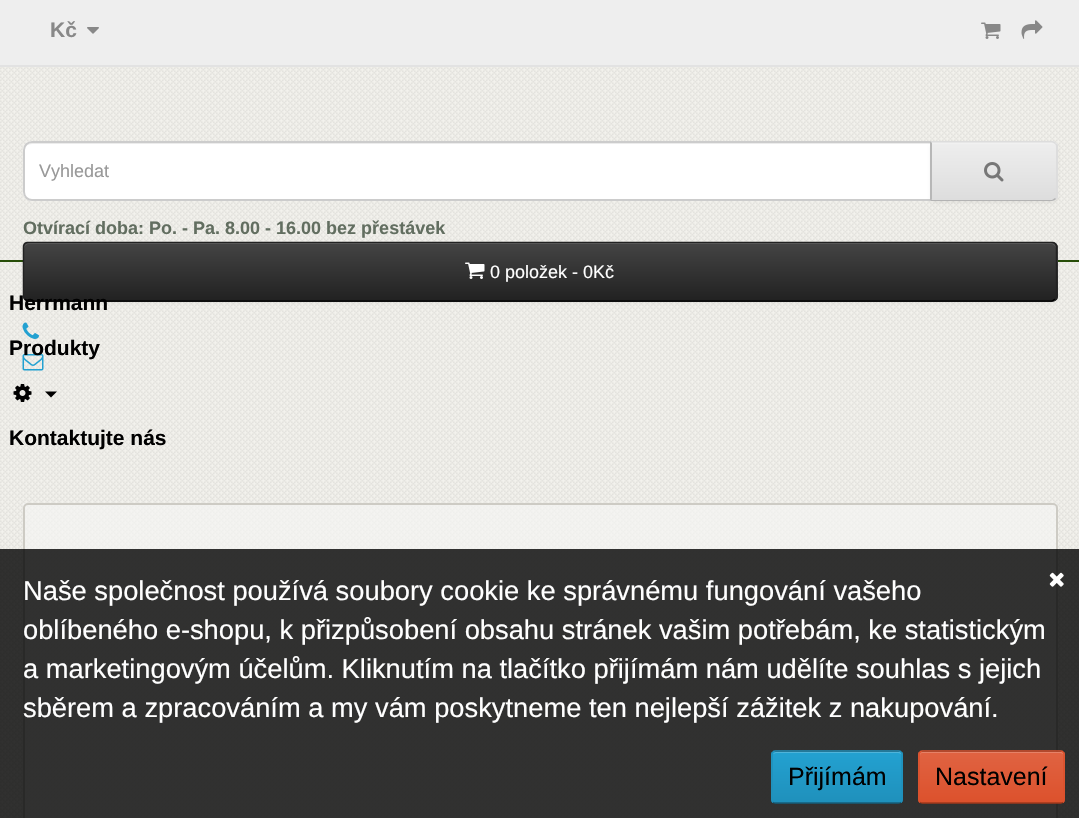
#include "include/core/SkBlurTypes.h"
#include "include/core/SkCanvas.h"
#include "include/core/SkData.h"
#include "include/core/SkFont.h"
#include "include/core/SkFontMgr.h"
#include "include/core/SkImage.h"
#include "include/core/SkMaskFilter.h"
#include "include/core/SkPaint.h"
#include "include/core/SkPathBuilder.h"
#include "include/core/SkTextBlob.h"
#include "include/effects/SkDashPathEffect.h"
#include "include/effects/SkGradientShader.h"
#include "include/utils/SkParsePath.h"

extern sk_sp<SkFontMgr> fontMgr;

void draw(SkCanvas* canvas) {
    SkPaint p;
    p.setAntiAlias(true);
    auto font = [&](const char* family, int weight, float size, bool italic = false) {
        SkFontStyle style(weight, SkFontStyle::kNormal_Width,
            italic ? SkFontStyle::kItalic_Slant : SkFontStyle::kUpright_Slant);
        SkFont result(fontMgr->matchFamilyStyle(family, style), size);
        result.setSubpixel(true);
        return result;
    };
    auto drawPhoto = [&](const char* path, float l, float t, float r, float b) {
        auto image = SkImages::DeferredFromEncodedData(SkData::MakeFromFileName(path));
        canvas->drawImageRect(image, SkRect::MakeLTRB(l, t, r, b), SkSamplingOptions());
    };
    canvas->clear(0xFFFFFFFF);
    drawPhoto("media/1.png", 0, 67, 1079, 818);
    p.setColor(0xFFEEEEEE);
    canvas->drawRect(SkRect::MakeLTRB(0, 0, 1079, 65), p);
    p.setColor(0xFFE2E2E2);
    canvas->drawRect(SkRect::MakeLTRB(0, 65, 1079, 67), p);
    auto font1 = font("Liberation Sans", 700, 21);
    p.setColor(0xFF888888);
    canvas->drawString("Kč", 50, 37, font1, p);
    drawPhoto("media/2.png", 87, 27, 99, 34);
    drawPhoto("media/3.png", 981, 22, 1001, 39);
    drawPhoto("media/4.png", 1021, 20, 1043, 39);
    p.setColor(0xFF274D08);
    canvas->drawRect(SkRect::MakeLTRB(0, 260, 1079, 262), p);
    p.setColor(0xFFFFFFFF);
    canvas->drawPath(SkPathBuilder().moveTo(32, 141).lineTo(932, 141).lineTo(932, 201).lineTo(32, 201).cubicTo(27, 201, 23, 197, 23, 192).lineTo(23, 150).cubicTo(23, 145, 27, 141, 32, 141).close().detach(), p);
    p.setColor(0xFFECECEC);
    canvas->drawPath(SkPathBuilder().moveTo(32, 144).lineTo(930, 144).lineTo(930, 143).lineTo(32, 143).cubicTo(27, 143, 24, 147, 24, 152).cubicTo(24, 147, 27, 144, 32, 144).close().detach(), p);
    p.setStyle(SkPaint::kStroke_Style);
    p.setStrokeWidth(2);
    p.setColor(0xFFCCCCCC);
    canvas->drawPath(SkPathBuilder().moveTo(32, 142).lineTo(931, 142).lineTo(931, 200).lineTo(32, 200).cubicTo(27.5f, 200, 24, 196.5f, 24, 192).lineTo(24, 150).cubicTo(24, 145.5f, 27.5f, 142, 32, 142).close().detach(), p);
    auto font2 = font("Liberation Sans", 400, 18);
    p.setStyle(SkPaint::kFill_Style);
    p.setColor(0xFF999999);
    canvas->drawString("Vyhledat", 39, 177, font2, p);
    p.setColor(0x0D000000);
    p.setMaskFilter(SkMaskFilter::MakeBlur(kNormal_SkBlurStyle, 1.5f));
    canvas->drawRoundRect(SkRect::MakeLTRB(930, 143, 1058, 203), 6, 6, p);
    p.setMaskFilter(nullptr);
    p.setColor(0xFFE7E7E7);
    canvas->drawPath(SkPathBuilder().moveTo(930, 141).lineTo(1052, 141).cubicTo(1055.5f, 141, 1058, 143.5f, 1058, 147).lineTo(1058, 195).cubicTo(1058, 198.5f, 1055.5f, 201, 1052, 201).lineTo(930, 201).close().detach(), p);
    canvas->save();
    canvas->clipPath(SkPathBuilder().moveTo(930, 141).lineTo(1052, 141).cubicTo(1055.5f, 141, 1058, 143.5f, 1058, 147).lineTo(1058, 195).cubicTo(1058, 198.5f, 1055.5f, 201, 1052, 201).lineTo(930, 201).close().detach(), true);
    {
        const SkColor colors[] = {0xFFEEEEEE, 0xFFDDDDDD};
        const float stops[] = {0, 1};
        const SkPoint ends[] = {{994, 143}, {994, 200}};
        p.setShader(SkGradientShader::MakeLinear(ends, colors, stops, 2, SkTileMode::kClamp));
        p.setAlpha(255);
    }
    canvas->drawRect(SkRect::MakeLTRB(931, 143, 1058, 200), p);
    canvas->restore();
    p.setShader(nullptr);
    p.setColor(0xFFF1F1F1);
    canvas->drawPath(SkPathBuilder().moveTo(932, 144).lineTo(1052, 144).cubicTo(1054, 144, 1056, 146, 1056, 148).cubicTo(1056, 145, 1054, 143, 1051, 143).lineTo(932, 143).close().detach(), p);
    p.setColor(0xFFDDDDDD);
    canvas->drawPath(SkPathBuilder().moveTo(930, 141).lineTo(932, 143).lineTo(932, 142).lineTo(1052, 142).lineTo(1055, 144).lineTo(1056, 143).cubicTo(1055, 142, 1053, 141, 1052, 141).close().detach(), p);
    canvas->drawPath(SkPathBuilder().moveTo(1058, 197).lineTo(1056, 199).lineTo(1055, 198).cubicTo(1056, 197, 1056, 196, 1056, 195).lineTo(1056, 147).cubicTo(1056, 146, 1056, 145, 1055, 144).lineTo(1056, 143).lineTo(1058, 145).close().detach(), p);
    p.setColor(0xFFB3B3B3);
    canvas->drawPath(SkPathBuilder().moveTo(1052, 201).cubicTo(1053, 201, 1055, 200, 1056, 199).lineTo(1055, 198).lineTo(1052, 200).lineTo(932, 200).lineTo(932, 199).lineTo(930, 201).close().detach(), p);
    p.setColor(0xFFB7B7B7);
    canvas->drawPath(SkPathBuilder().moveTo(930, 141).lineTo(930, 201).lineTo(932, 199).lineTo(932, 143).close().detach(), p);
    drawPhoto("media/5.png", 984, 162, 1004, 182);
    auto font3 = font("Liberation Sans", 700, 18);
    p.setColor(0xFF626E60);
    canvas->drawString("Otvírací doba: Po. - Pa. 8.00 - 16.00 bez přestávek", 23, 234, font3, p);
    p.setColor(0x0D000000);
    p.setMaskFilter(SkMaskFilter::MakeBlur(kNormal_SkBlurStyle, 1.5f));
    canvas->drawRoundRect(SkRect::MakeLTRB(23, 243, 1058, 303), 6, 6, p);
    p.setMaskFilter(nullptr);
    p.setColor(0xFF363636);
    canvas->drawRoundRect(SkRect::MakeLTRB(23, 242, 1058, 302), 6, 6, p);
    canvas->save();
    canvas->clipPath(SkPathBuilder().moveTo(29, 242).lineTo(1052, 242).cubicTo(1055.5f, 242, 1058, 244.5f, 1058, 248).lineTo(1058, 296).cubicTo(1058, 299.5f, 1055.5f, 302, 1052, 302).lineTo(29, 302).cubicTo(25.5f, 302, 23, 299.5f, 23, 296).lineTo(23, 248).cubicTo(23, 244.5f, 25.5f, 242, 29, 242).close().detach(), true);
    {
        const SkColor colors[] = {0xFF444444, 0xFF222222};
        const float stops[] = {0, 1};
        const SkPoint ends[] = {{540, 243}, {540, 300}};
        p.setShader(SkGradientShader::MakeLinear(ends, colors, stops, 2, SkTileMode::kClamp));
        p.setAlpha(255);
    }
    canvas->drawRect(SkRect::MakeLTRB(23, 243, 1058, 300), p);
    canvas->restore();
    p.setShader(nullptr);
    p.setColor(0xFF696969);
    canvas->drawPath(SkPathBuilder().moveTo(28, 244).lineTo(1052, 244).cubicTo(1054, 244, 1056, 247, 1056, 249).cubicTo(1056, 246, 1054, 243, 1051, 243).lineTo(29, 243).cubicTo(26, 243, 24, 246, 24, 249).cubicTo(24, 247, 26, 244, 28, 244).close().detach(), p);
    p.setStyle(SkPaint::kStroke_Style);
    p.setStrokeWidth(1.5f);
    p.setColor(0xFF000000);
    canvas->drawPath(SkPathBuilder().moveTo(1055, 299).cubicTo(1054, 300, 1053, 301, 1051.5f, 301).lineTo(28.5f, 301).cubicTo(27, 301, 26, 300, 25, 299).detach(), p);
    p.setColor(0xFF222222);
    canvas->drawPath(SkPathBuilder().moveTo(25, 299).lineTo(23.5f, 296.5f).lineTo(23.5f, 246).cubicTo(24, 244, 25.5f, 242.5f, 27.5f, 242.5f).lineTo(1052.5f, 242.5f).cubicTo(1054.5f, 242.5f, 1056, 244, 1056.5f, 246).lineTo(1056.5f, 296.5f).lineTo(1055, 299).detach(), p);
    drawPhoto("media/6.png", 465, 262, 485, 279);
    p.setStyle(SkPaint::kFill_Style);
    p.setColor(0xFFFFFFFF);
    canvas->drawString("0 položek - 0Kč", 490, 278, font2, p);
    drawPhoto("media/7.png", 22, 322, 39, 339);
    drawPhoto("media/8.png", 22, 354, 44, 371);
    p.setColor(0xFF000000);
    canvas->drawString("Herrmann", 9, 310, font1, p);
    canvas->drawString("Produkty", 9, 355, font1, p);
    drawPhoto("media/9.png", 13, 384, 32, 402);
    canvas->drawPath(SkPathBuilder().moveTo(45, 391.5f).lineTo(57, 391.5f).lineTo(51, 397.5f).close().detach(), p);
    canvas->drawString("Kontaktujte nás", 9, 445, font1, p);
    p.setColor(0xABF5F5F3);
    canvas->drawRect(SkRect::MakeLTRB(23, 503, 1057, 818), p);
    p.setStyle(SkPaint::kStroke_Style);
    p.setStrokeWidth(2);
    p.setColor(0xFFCDCBC4);
    canvas->drawRoundRect(SkRect::MakeLTRB(24, 504, 1057, 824), 4, 4, p);
    p.setStyle(SkPaint::kFill_Style);
    p.setColor(0xCC000000);
    canvas->drawRect(SkRect::MakeLTRB(0, 549, 1079, 818), p);
    auto font4 = font("Liberation Sans", 400, 27.3f);
    p.setColor(0xFFFFFFFF);
    {
        const struct { const char* s; float x, y; } items[] = {
            {"Naše společnost používá soubory cookie ke správnému fungování vašeho", 23, 600},
            {"oblíbeného e-shopu, k přizpůsobení obsahu stránek vašim potřebám, ke statistickým", 23, 639},
            {"a marketingovým účelům. Kliknutím na tlačítko přijímám nám udělíte souhlas s jejich", 23, 678},
            {"sběrem a zpracováním a my vám poskytneme ten nejlepší zážitek z nakupování.", 23, 717},
        };
        for (auto [s, x, y] : items) {
            canvas->drawString(s, x, y, font4, p);
        }
    }
    drawPhoto("media/10.png", 1049, 572, 1064, 587);
    canvas->save();
    canvas->clipPath(SkPathBuilder().moveTo(776, 750).lineTo(898, 750).cubicTo(901, 750, 903, 752, 903, 755).lineTo(903, 799).cubicTo(903, 802, 901, 804, 898, 804).lineTo(776, 804).cubicTo(773, 804, 771, 802, 771, 799).lineTo(771, 755).cubicTo(771, 752, 773, 750, 776, 750).close().detach(), true);
    {
        const SkColor colors[] = {0xFF23A1D1, 0xFF1F90BB};
        const float stops[] = {0, 1};
        const SkPoint ends[] = {{837, 752}, {837, 803}};
        p.setShader(SkGradientShader::MakeLinear(ends, colors, stops, 2, SkTileMode::kClamp));
        p.setAlpha(255);
    }
    canvas->drawRect(SkRect::MakeLTRB(771, 752, 903, 803), p);
    canvas->restore();
    p.setShader(nullptr);
    p.setColor(0xFF4FB4DA);
    canvas->drawPath(SkPathBuilder().moveTo(776, 753).lineTo(898, 753).cubicTo(900, 753, 902, 754, 902, 756).lineTo(902, 755).cubicTo(902, 753, 901, 752, 899, 752).lineTo(776, 752).cubicTo(775, 752, 774, 753, 773, 754).close().detach(), p);
    p.setStyle(SkPaint::kStroke_Style);
    p.setStrokeWidth(1.5f);
    p.setColor(0xFF145E7A);
    canvas->drawPath(SkPathBuilder().moveTo(901, 802).cubicTo(900.5f, 803, 899.5f, 803, 898.5f, 803).lineTo(775.5f, 803).cubicTo(774.5f, 803, 773.5f, 803, 773, 802).detach(), p);
    p.setColor(0xFF1F90BB);
    canvas->drawPath(SkPathBuilder().moveTo(773, 802).cubicTo(772, 801.5f, 772, 800.5f, 772, 799.5f).lineTo(772, 754.5f).cubicTo(772, 753.5f, 772, 752.5f, 773, 752).cubicTo(773.5f, 751, 774.5f, 751, 775.5f, 751).lineTo(898.5f, 751).cubicTo(899.5f, 751, 900.5f, 751, 901, 752).cubicTo(902, 752.5f, 902, 753.5f, 902, 754.5f).lineTo(902, 799.5f).cubicTo(902, 800.5f, 902, 801.5f, 901, 802).detach(), p);
    auto font5 = font("Liberation Sans", 400, 25);
    p.setStyle(SkPaint::kFill_Style);
    p.setColor(0xFF000000);
    canvas->drawString("Přijímám", 788, 785, font5, p);
    canvas->save();
    canvas->clipPath(SkPathBuilder().moveTo(923, 750).lineTo(1060, 750).cubicTo(1063, 750, 1065, 752, 1065, 755).lineTo(1065, 799).cubicTo(1065, 802, 1063, 804, 1060, 804).lineTo(923, 804).cubicTo(920, 804, 918, 802, 918, 799).lineTo(918, 755).cubicTo(918, 752, 920, 750, 923, 750).close().detach(), true);
    {
        const SkColor colors[] = {0xFFE06342, 0xFFDC512C};
        const float stops[] = {0, 1};
        const SkPoint ends[] = {{992, 752}, {992, 803}};
        p.setShader(SkGradientShader::MakeLinear(ends, colors, stops, 2, SkTileMode::kClamp));
        p.setAlpha(255);
    }
    canvas->drawRect(SkRect::MakeLTRB(918, 752, 1065, 803), p);
    canvas->restore();
    p.setShader(nullptr);
    p.setColor(0xFFE68268);
    canvas->drawPath(SkPathBuilder().moveTo(922, 753).lineTo(1060, 753).cubicTo(1062, 753, 1064, 754, 1064, 756).lineTo(1064, 755).cubicTo(1064, 753, 1063, 752, 1061, 752).lineTo(923, 752).cubicTo(921, 752, 920, 753, 920, 755).lineTo(920, 756).cubicTo(920, 754, 921, 753, 922, 753).close().detach(), p);
    p.setStyle(SkPaint::kStroke_Style);
    p.setColor(0xFFA2371A);
    canvas->drawPath(SkPathBuilder().moveTo(1063, 802).cubicTo(1062.5f, 803, 1061.5f, 803, 1060.5f, 803).lineTo(922.5f, 803).cubicTo(921.5f, 803, 920.5f, 803, 920, 802).detach(), p);
    p.setColor(0xFFDC512C);
    canvas->drawPath(SkPathBuilder().moveTo(920, 802).cubicTo(919, 801.5f, 919, 800.5f, 919, 799.5f).lineTo(919, 754.5f).cubicTo(919, 753.5f, 919, 752.5f, 920, 752).cubicTo(920.5f, 751, 921.5f, 751, 922.5f, 751).lineTo(1060.5f, 751).cubicTo(1061.5f, 751, 1062.5f, 751, 1063, 752).cubicTo(1064, 752.5f, 1064, 753.5f, 1064, 754.5f).lineTo(1064, 799.5f).cubicTo(1064, 800.5f, 1064, 801.5f, 1063, 802).detach(), p);
    p.setStyle(SkPaint::kFill_Style);
    p.setColor(0xFF000000);
    canvas->drawString("Nastavení", 935, 785, font5, p);
}
